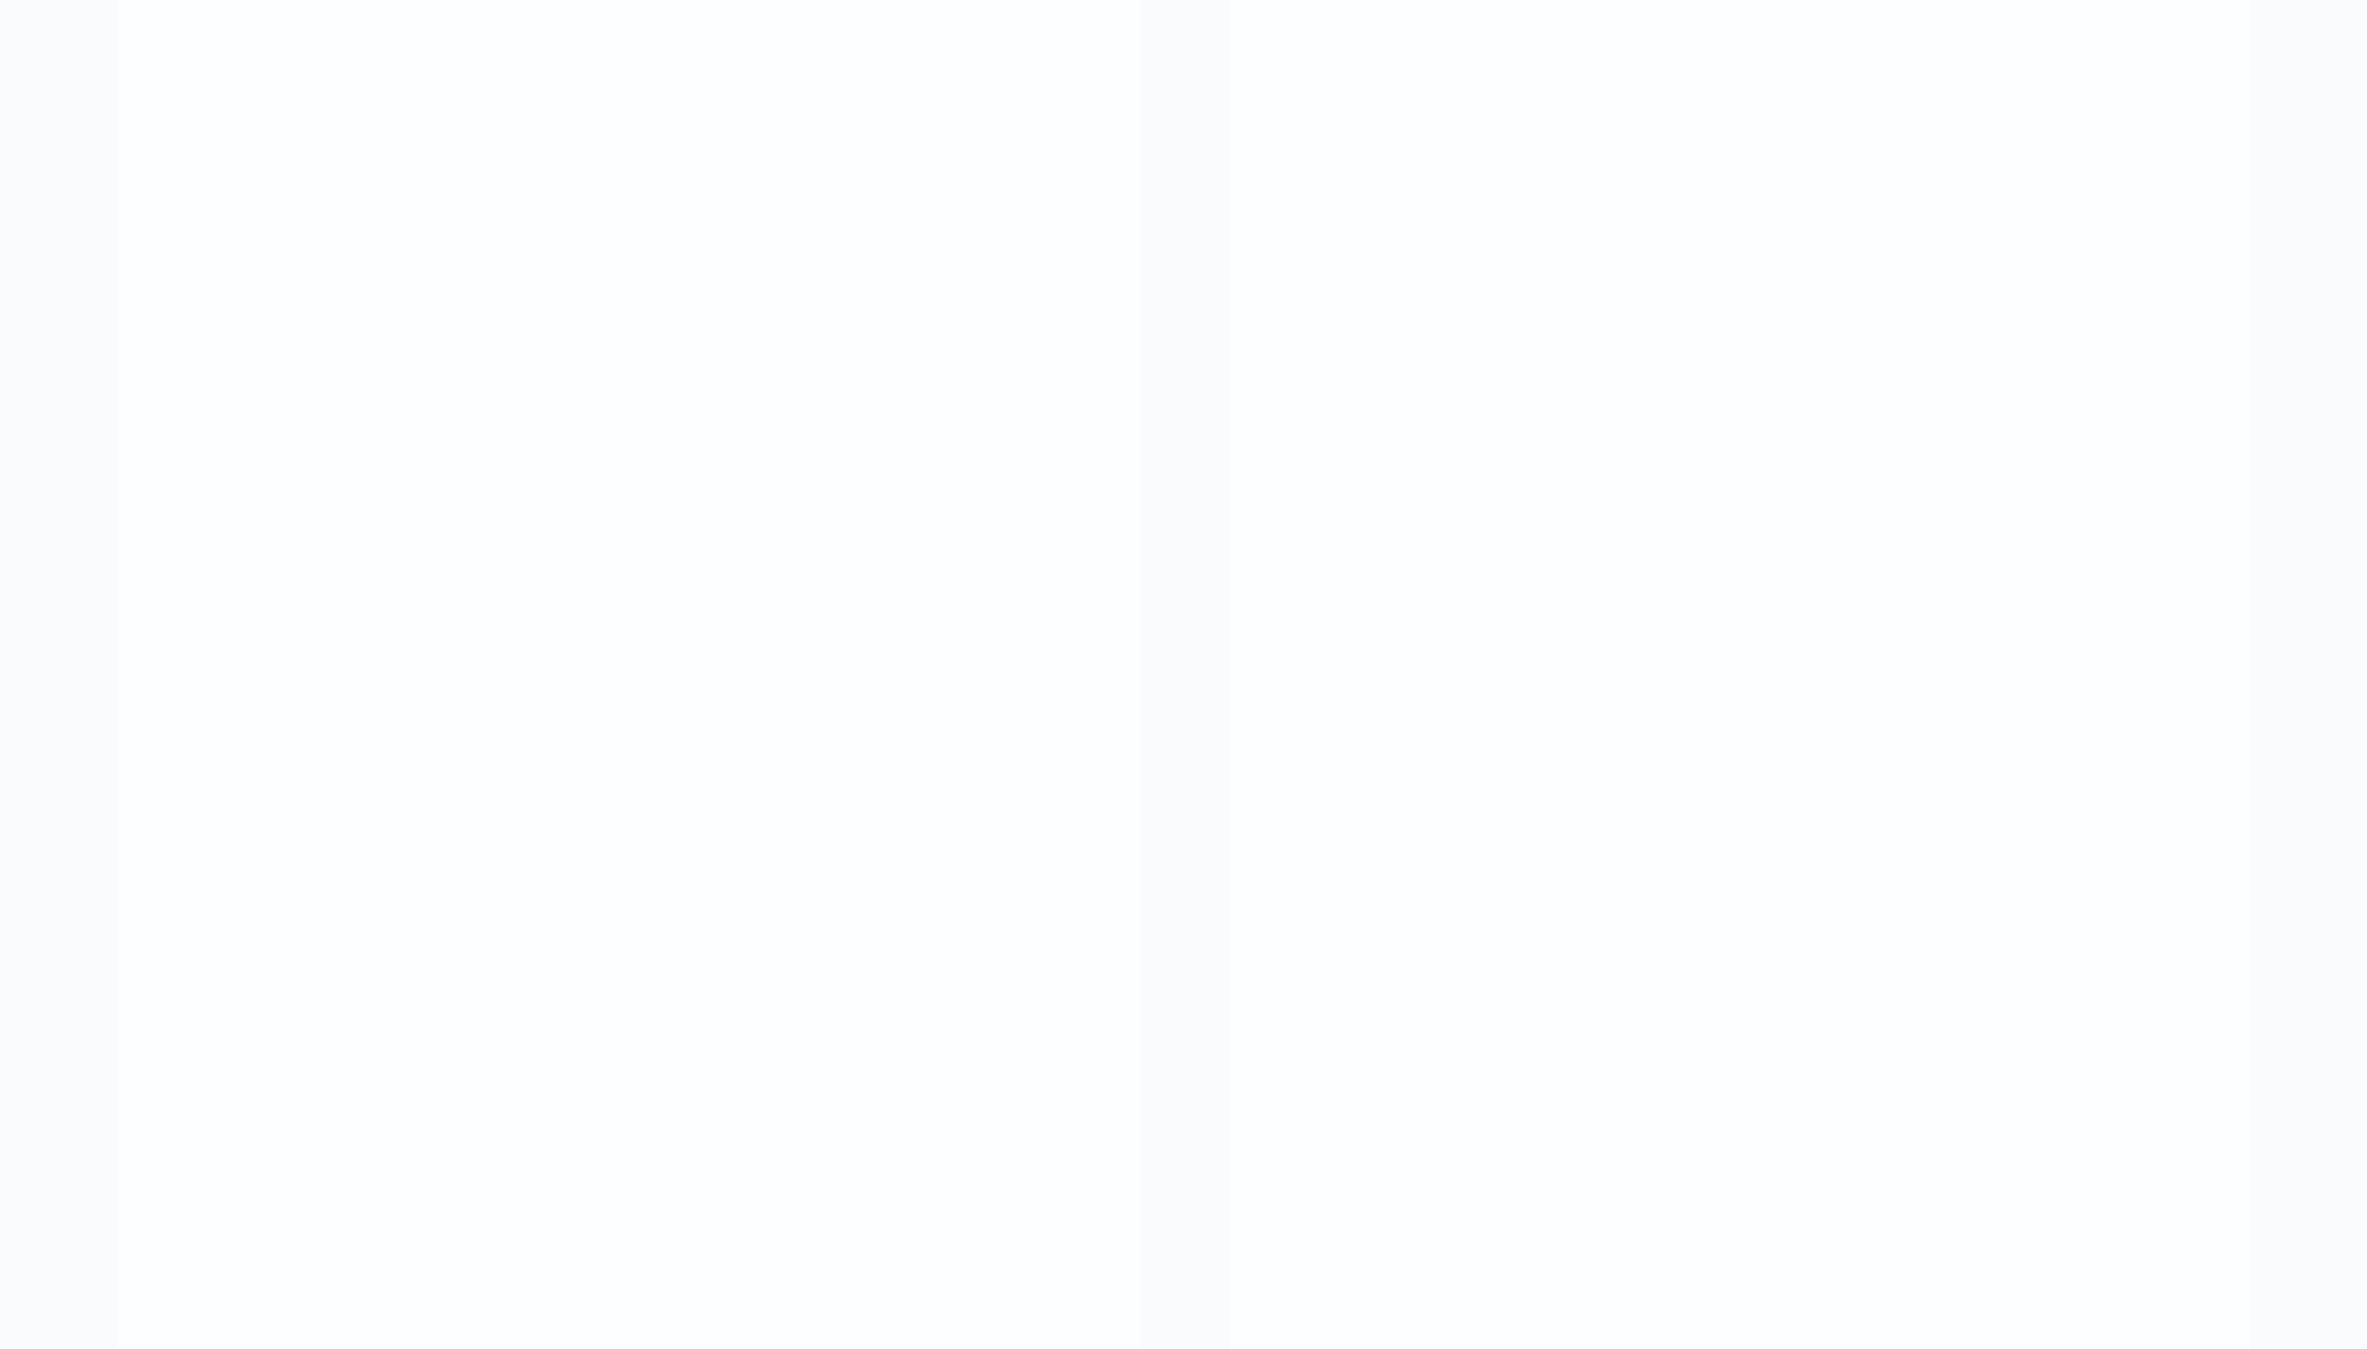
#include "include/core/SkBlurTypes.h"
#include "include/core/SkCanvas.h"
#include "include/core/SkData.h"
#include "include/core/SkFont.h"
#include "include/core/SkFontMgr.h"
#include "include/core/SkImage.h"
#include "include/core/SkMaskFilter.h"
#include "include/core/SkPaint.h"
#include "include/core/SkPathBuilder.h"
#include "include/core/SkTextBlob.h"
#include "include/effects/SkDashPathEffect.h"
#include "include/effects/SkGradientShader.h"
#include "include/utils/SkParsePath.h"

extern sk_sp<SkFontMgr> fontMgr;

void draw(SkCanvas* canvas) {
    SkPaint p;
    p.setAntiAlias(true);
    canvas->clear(0xFFFAFBFC);
    p.setColor(0xFFFDFEFF);
    canvas->drawRect(SkRect::MakeLTRB(117, 0, 1140, 1349), p);
    canvas->drawRect(SkRect::MakeLTRB(1230, 0, 2250, 1349), p);
}
